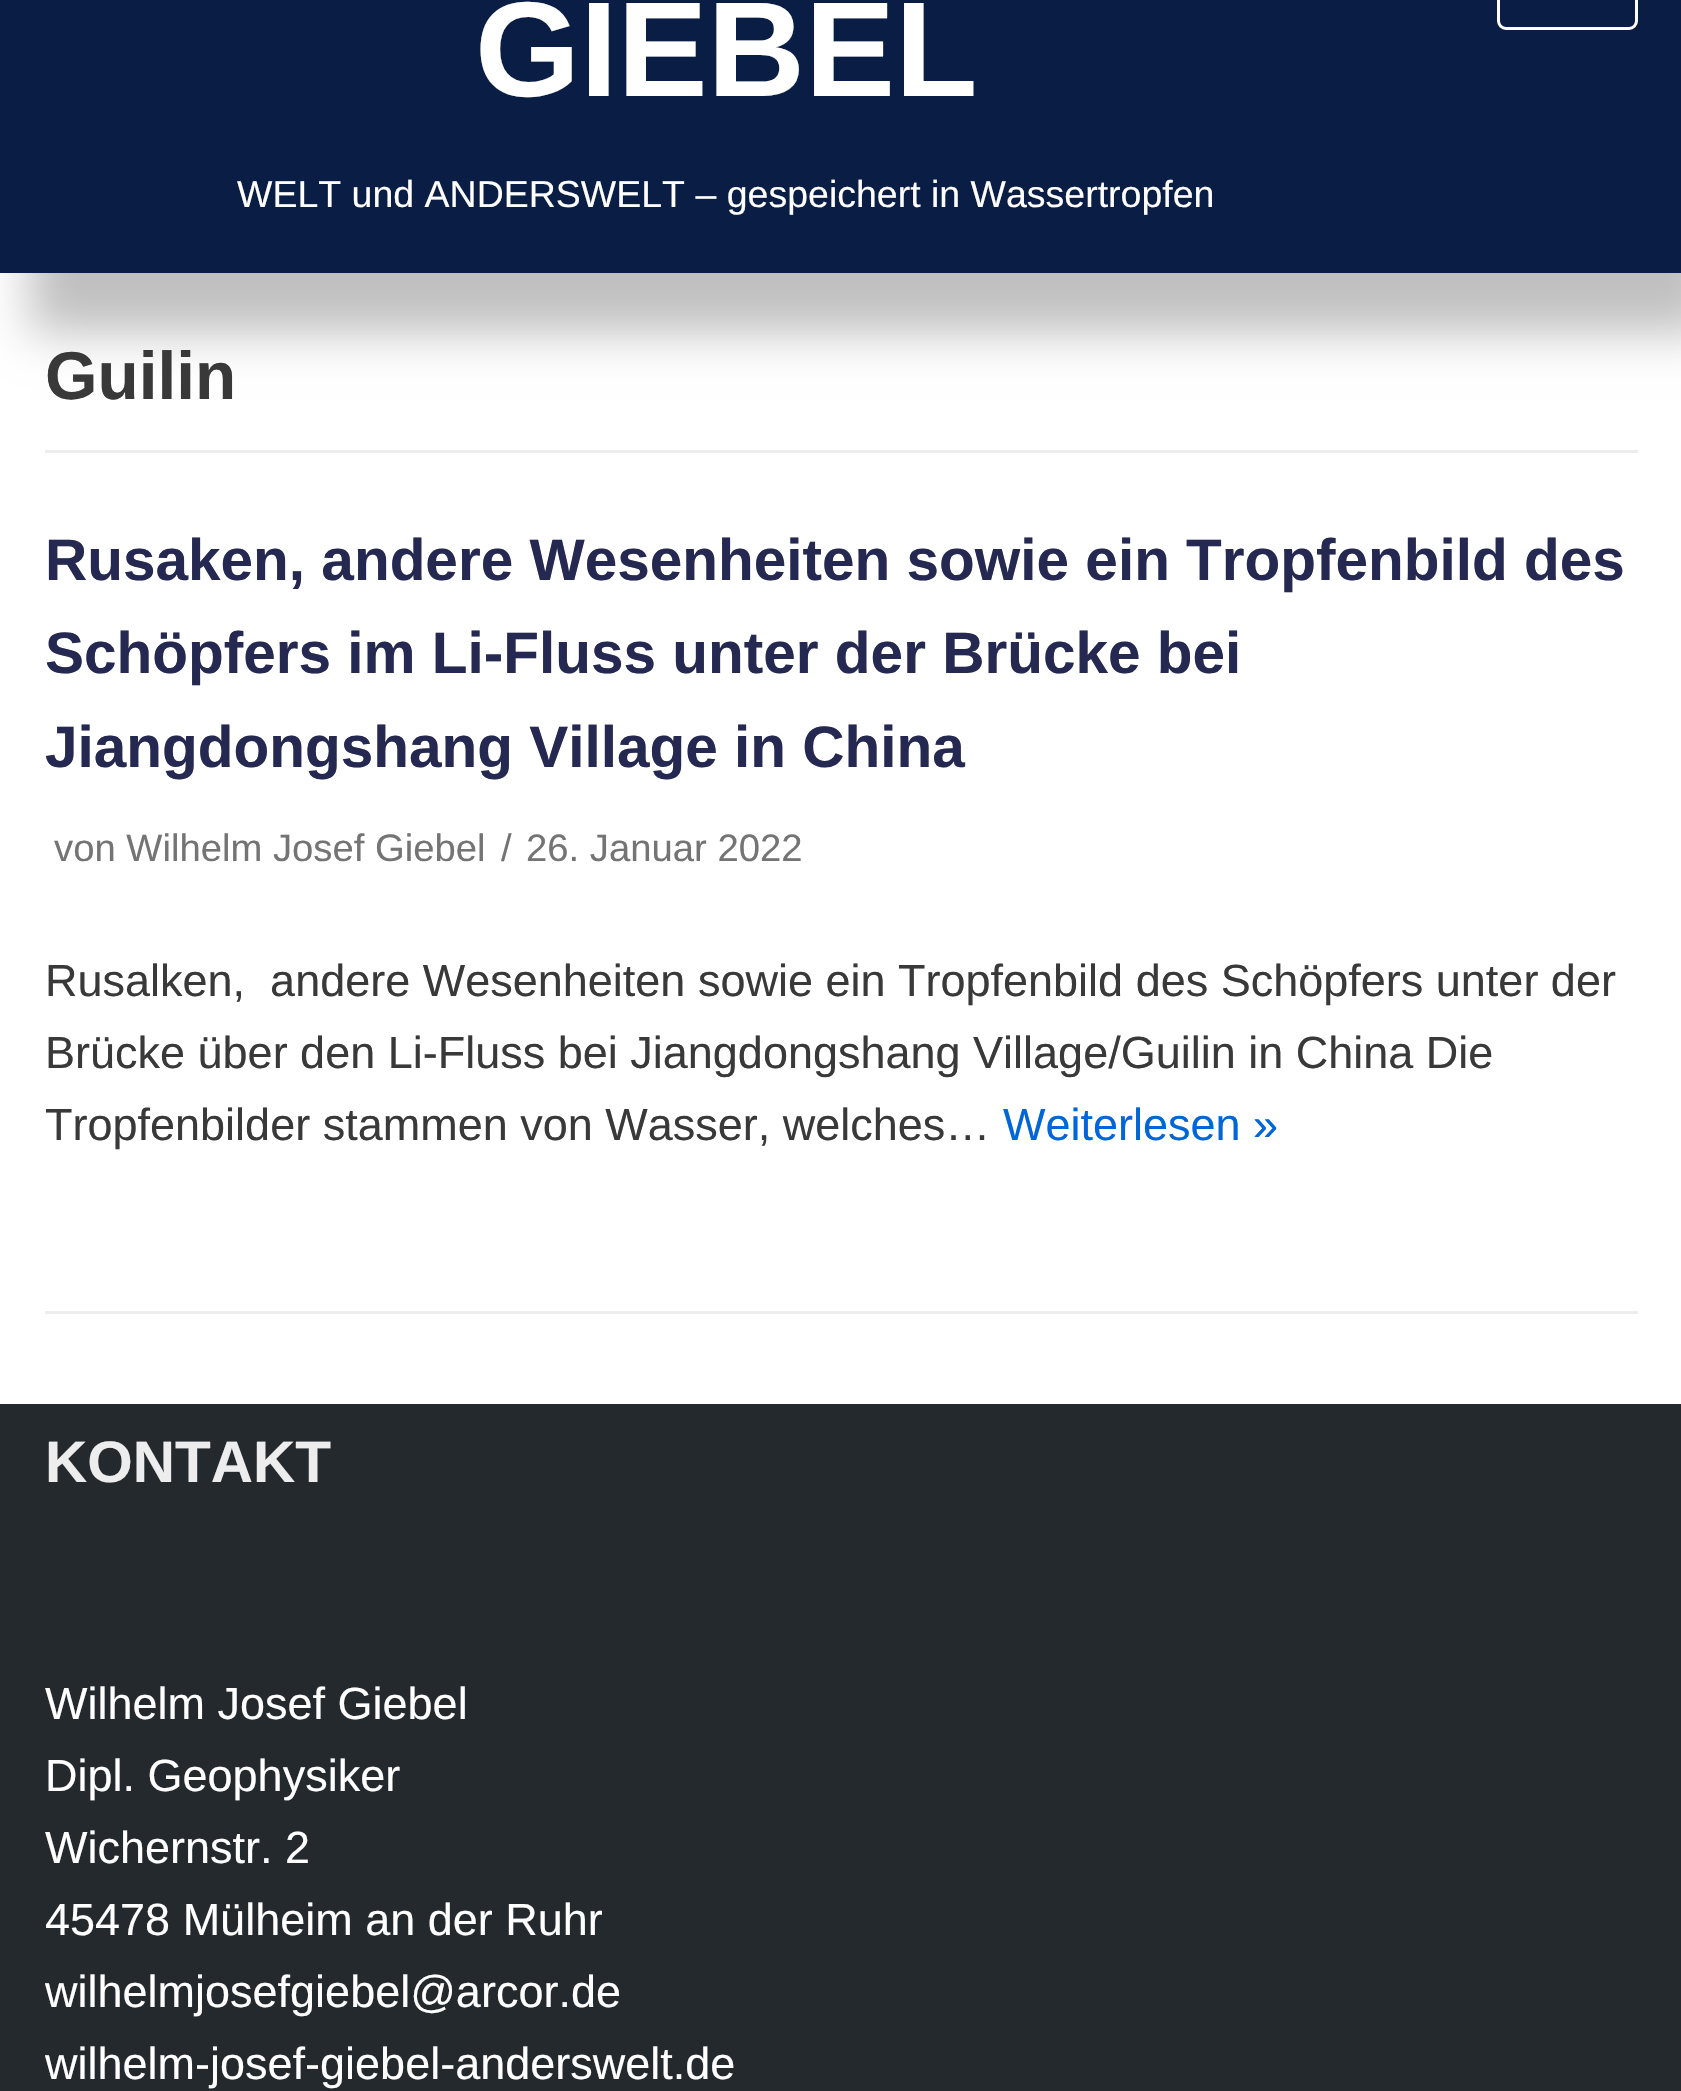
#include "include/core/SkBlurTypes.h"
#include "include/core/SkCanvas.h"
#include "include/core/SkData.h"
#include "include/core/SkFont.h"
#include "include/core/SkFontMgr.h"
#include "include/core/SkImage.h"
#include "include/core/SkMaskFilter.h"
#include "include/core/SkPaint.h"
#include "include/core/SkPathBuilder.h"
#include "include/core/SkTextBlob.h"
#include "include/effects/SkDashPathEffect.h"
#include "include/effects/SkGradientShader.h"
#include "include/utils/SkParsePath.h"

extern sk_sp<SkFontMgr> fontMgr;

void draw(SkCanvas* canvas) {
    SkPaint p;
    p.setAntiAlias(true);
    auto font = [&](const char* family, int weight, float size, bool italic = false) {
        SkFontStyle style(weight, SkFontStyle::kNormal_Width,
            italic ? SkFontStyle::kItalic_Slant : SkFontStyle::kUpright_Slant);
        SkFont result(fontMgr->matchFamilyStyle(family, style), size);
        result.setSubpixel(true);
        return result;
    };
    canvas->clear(0xFFFFFFFF);
    p.setColor(0xFFC0C0C0);
    p.setMaskFilter(SkMaskFilter::MakeBlur(kNormal_SkBlurStyle, 22.5f));
    canvas->drawRect(SkRect::MakeLTRB(30, -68, 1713, 333), p);
    p.setMaskFilter(nullptr);
    p.setColor(0xFF0A1D44);
    canvas->drawRect(SkRect::MakeLTRB(0, 0, 1681, 273), p);
    auto font1 = font("Liberation Sans", 700, 135);
    p.setColor(0xFFFFFFFF);
    canvas->drawString("GIEBEL", 475, 96, font1, p);
    auto font2 = font("Liberation Sans", 400, 37.5f);
    canvas->drawString("WELT und ANDERSWELT – gespeichert in Wassertropfen", 237, 207, font2, p);
    p.setStyle(SkPaint::kStroke_Style);
    p.setStrokeWidth(3);
    canvas->drawRoundRect(SkRect::MakeLTRB(1498.5f, -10.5f, 1636.5f, 28.5f), 7.5f, 7.5f, p);
    p.setStyle(SkPaint::kFill_Style);
    p.setColor(0xFFEDEDED);
    canvas->drawRect(SkRect::MakeLTRB(45, 450, 1638, 453), p);
    auto font3 = font("Liberation Sans", 700, 67.5f);
    p.setColor(0xFF393939);
    canvas->drawString("Guilin", 45, 399, font3, p);
    p.setColor(0xFFEDEDED);
    canvas->drawRect(SkRect::MakeLTRB(45, 1311, 1638, 1314), p);
    auto font4 = font("Liberation Sans", 700, 58.5f);
    p.setColor(0xFF252850);
    {
        const struct { const char* s; float x, y; } items[] = {
            {"Rusaken, andere Wesenheiten sowie ein Tropfenbild des", 45, 580},
            {"Schöpfers im Li-Fluss unter der Brücke bei", 45, 673},
            {"Jiangdongshang Village in China", 45, 767},
        };
        for (auto [s, x, y] : items) {
            canvas->drawString(s, x, y, font4, p);
        }
    }
    auto font5 = font("Liberation Sans", 400, 38.25f);
    p.setColor(0xFF747474);
    {
        const struct { const char* s; float x, y; } items[] = {
            {"von Wilhelm Josef Giebel", 54, 861},
            {"/", 501, 861},
            {"26. Januar 2022", 526, 861},
        };
        for (auto [s, x, y] : items) {
            canvas->drawString(s, x, y, font5, p);
        }
    }
    auto font6 = font("Liberation Sans", 400, 45);
    p.setColor(0xFF393939);
    {
        const struct { const char* s; float x, y; } items[] = {
            {"Rusalken,  andere Wesenheiten sowie ein Tropfenbild des Schöpfers unter der", 45, 996},
            {"Brücke über den Li-Fluss bei Jiangdongshang Village/Guilin in China Die", 45, 1068},
            {"Tropfenbilder stammen von Wasser, welches…", 45, 1140},
        };
        for (auto [s, x, y] : items) {
            canvas->drawString(s, x, y, font6, p);
        }
    }
    p.setColor(0xFF0366D6);
    canvas->drawString("Weiterlesen »", 1003, 1140, font6, p);
    p.setColor(0xFF24292E);
    canvas->drawRect(SkRect::MakeLTRB(0, 1404, 1681, 2091), p);
    p.setColor(0xFFEDEDED);
    canvas->drawString("KONTAKT", 45, 1482, font4, p);
    p.setColor(0xFFFFFFFF);
    {
        const struct { const char* s; float x, y; } items[] = {
            {"Wilhelm Josef Giebel", 45, 1719},
            {"Dipl. Geophysiker", 45, 1791},
            {"Wichernstr. 2", 45, 1863},
            {"45478 Mülheim an der Ruhr", 45, 1935},
            {"wilhelmjosefgiebel@arcor.de", 45, 2007},
            {"wilhelm-josef-giebel-anderswelt.de", 45, 2079},
        };
        for (auto [s, x, y] : items) {
            canvas->drawString(s, x, y, font6, p);
        }
    }
}
